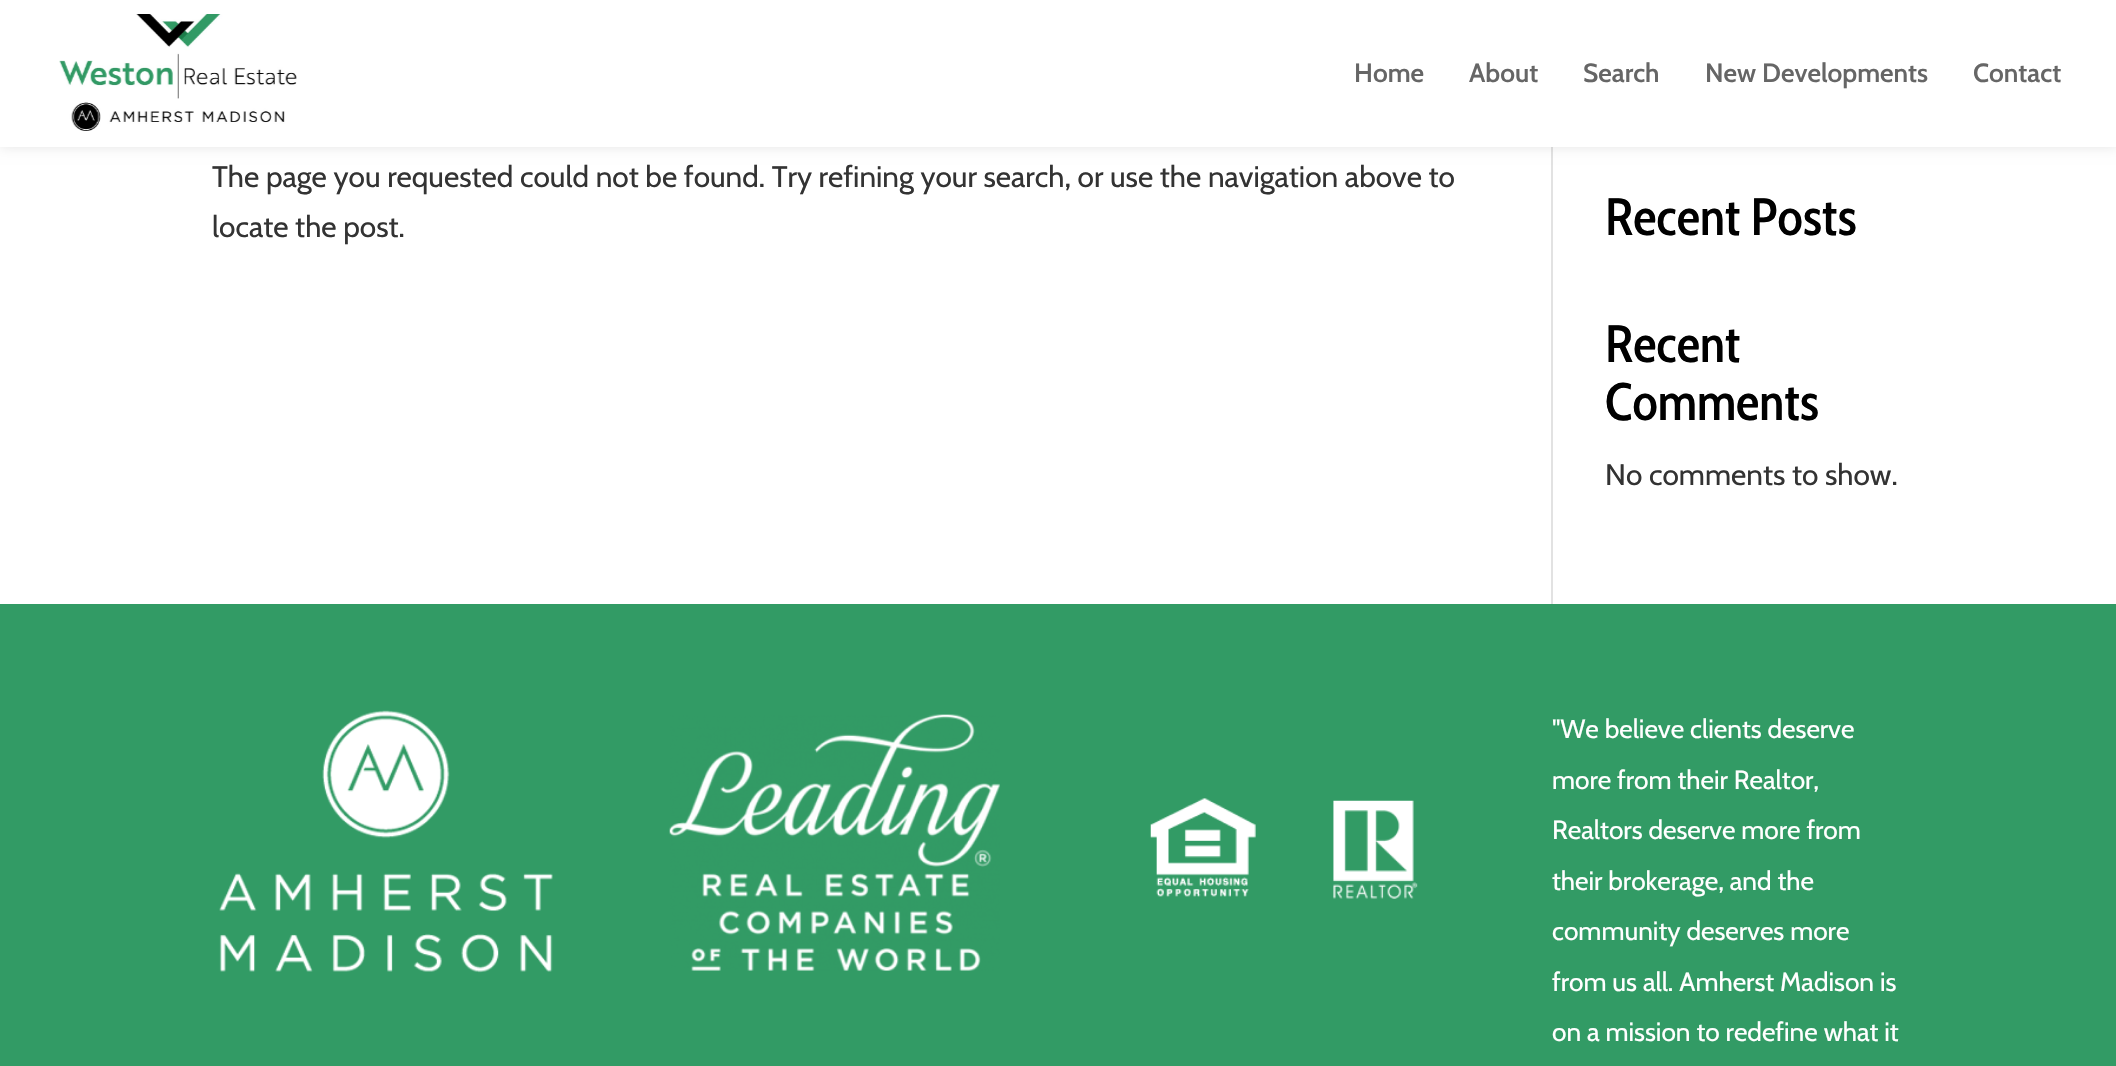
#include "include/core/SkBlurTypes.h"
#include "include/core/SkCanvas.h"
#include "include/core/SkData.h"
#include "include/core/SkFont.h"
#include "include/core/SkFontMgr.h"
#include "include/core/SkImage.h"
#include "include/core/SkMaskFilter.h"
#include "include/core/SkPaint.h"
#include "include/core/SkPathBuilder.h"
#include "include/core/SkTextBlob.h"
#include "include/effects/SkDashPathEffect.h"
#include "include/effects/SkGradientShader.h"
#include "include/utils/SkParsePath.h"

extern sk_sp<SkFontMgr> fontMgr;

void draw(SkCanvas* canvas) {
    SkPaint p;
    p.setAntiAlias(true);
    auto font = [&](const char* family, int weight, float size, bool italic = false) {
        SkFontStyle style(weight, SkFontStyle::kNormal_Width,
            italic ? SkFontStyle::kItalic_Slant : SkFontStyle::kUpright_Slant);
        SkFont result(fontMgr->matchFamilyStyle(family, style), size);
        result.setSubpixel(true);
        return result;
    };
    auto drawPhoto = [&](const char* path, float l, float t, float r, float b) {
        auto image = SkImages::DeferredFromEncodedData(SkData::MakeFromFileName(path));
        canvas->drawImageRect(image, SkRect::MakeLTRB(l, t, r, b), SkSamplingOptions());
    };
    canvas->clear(0xFFFFFFFF);
    p.setColor(0xFFE2E2E2);
    canvas->drawRect(SkRect::MakeLTRB(1551, 147, 1553, 604), p);
    p.setColor(0x1A000000);
    p.setMaskFilter(SkMaskFilter::MakeBlur(kNormal_SkBlurStyle, 6));
    canvas->drawRect(SkRect::MakeLTRB(0, 0, 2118, 147), p);
    p.setMaskFilter(nullptr);
    p.setColor(0xFFFFFFFF);
    canvas->drawRect(SkRect::MakeLTRB(0, 0, 2116, 147), p);
    drawPhoto("media/1.png", 59, 14, 297, 131);
    auto font1 = font("Cabin", 600, 26.25f);
    p.setColor(0xFF666666);
    {
        const struct { const char* s; float x, y; } items[] = {
            {"Home", 1354, 82},
            {"About", 1469, 82},
            {"Search", 1583, 82},
            {"New Developments", 1705, 82},
            {"Contact", 1973, 82},
        };
        for (auto [s, x, y] : items) {
            canvas->drawString(s, x, y, font1, p);
        }
    }
    auto font2 = font("Cabin", 400, 29.75f);
    p.setColor(0xFF333333);
    canvas->drawString("The page you requested could not be found. Try refining your search, or use the navigation above to", 212, 187, font2, p);
    canvas->drawString("locate the post.", 212, 237, font2, p);
    auto font3 = font("Cabin Condensed", 500, 52.5f);
    p.setColor(0xFF000000);
    {
        const struct { const char* s; float x, y; } items[] = {
            {"Recent Posts", 1605, 235},
            {"Recent", 1605, 362},
            {"Comments", 1605, 420},
        };
        for (auto [s, x, y] : items) {
            canvas->drawString(s, x, y, font3, p);
        }
    }
    p.setColor(0xFF333333);
    canvas->drawString("No comments to show.", 1605, 485, font2, p);
    p.setColor(0xFF329B65);
    canvas->drawRect(SkRect::MakeLTRB(0, 604, 2116, 1066), p);
    drawPhoto("media/2.png", 219, 710, 553, 973);
    drawPhoto("media/3.png", 669, 714, 1000, 971);
    drawPhoto("media/4.png", 1150, 798, 1418, 899);
    auto font4 = font("Cabin", 400, 26.25f);
    p.setColor(0xFFFFFFFF);
    {
        const struct { const char* s; float x, y; } items[] = {
            {"\"We believe clients deserve", 1552, 738},
            {"more from their Realtor,", 1552, 789},
            {"Realtors deserve more from", 1552, 839},
            {"their brokerage, and the", 1552, 890},
            {"community deserves more", 1552, 940},
            {"from us all. Amherst Madison is", 1552, 991},
            {"on a mission to redefine what it", 1552, 1041},
        };
        for (auto [s, x, y] : items) {
            canvas->drawString(s, x, y, font4, p);
        }
    }
}
